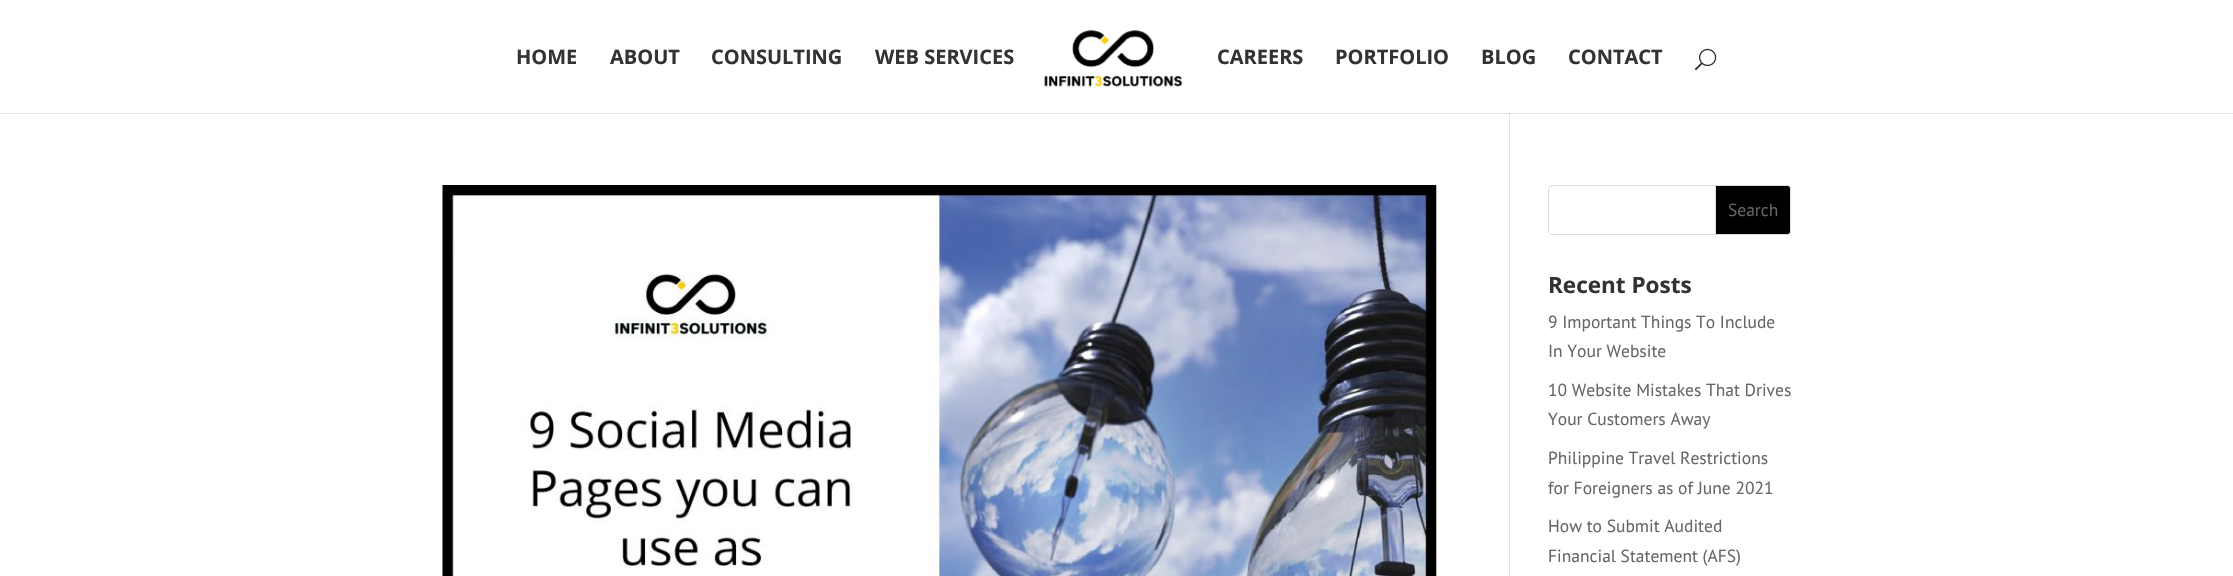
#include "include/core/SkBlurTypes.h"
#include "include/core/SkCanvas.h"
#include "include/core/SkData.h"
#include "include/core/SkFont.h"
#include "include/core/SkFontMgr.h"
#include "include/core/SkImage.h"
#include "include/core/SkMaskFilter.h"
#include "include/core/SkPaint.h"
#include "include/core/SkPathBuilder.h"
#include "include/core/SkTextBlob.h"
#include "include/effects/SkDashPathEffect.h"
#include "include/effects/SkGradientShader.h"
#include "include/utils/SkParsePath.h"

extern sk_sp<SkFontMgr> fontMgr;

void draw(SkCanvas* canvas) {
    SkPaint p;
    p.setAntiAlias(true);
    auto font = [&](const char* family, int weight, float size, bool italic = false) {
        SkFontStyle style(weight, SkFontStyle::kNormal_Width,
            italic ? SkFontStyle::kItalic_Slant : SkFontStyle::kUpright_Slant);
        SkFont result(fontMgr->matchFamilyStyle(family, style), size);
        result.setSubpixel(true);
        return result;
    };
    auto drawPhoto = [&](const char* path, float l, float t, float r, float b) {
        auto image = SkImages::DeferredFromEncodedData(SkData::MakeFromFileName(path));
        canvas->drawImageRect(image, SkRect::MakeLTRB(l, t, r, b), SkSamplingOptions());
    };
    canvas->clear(0xFFFFFFFF);
    p.setColor(0xFFE2E2E2);
    canvas->drawRect(SkRect::MakeLTRB(1509, 113, 1510, 576), p);
    p.setColor(0x1A000000);
    canvas->drawPath(SkPathBuilder().moveTo(0, 112).lineTo(0, 114).lineTo(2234, 114).lineTo(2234, 1).lineTo(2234, 112).close().detach(), p);
    p.setColor(0xFFFFFFFF);
    canvas->drawRect(SkRect::MakeLTRB(0, 112, 2233, 113), p);
    auto font1 = font("Open Sans", 700, 20);
    p.setColor(0xFF333333);
    {
        const struct { const char* s; float x, y; } items[] = {
            {"HOME", 516, 64},
            {"ABOUT", 610, 64},
            {"CONSULTING", 711, 64},
            {"WEB SERVICES", 875, 64},
        };
        for (auto [s, x, y] : items) {
            canvas->drawString(s, x, y, font1, p);
        }
    }
    drawPhoto("media/1.png", 1044, 30, 1183, 87);
    {
        const struct { const char* s; float x, y; } items[] = {
            {"CAREERS", 1217, 64},
            {"PORTFOLIO", 1335, 64},
            {"BLOG", 1481, 64},
            {"CONTACT", 1568, 64},
        };
        for (auto [s, x, y] : items) {
            canvas->drawString(s, x, y, font1, p);
        }
    }
    drawPhoto("media/2.png", 1695, 48, 1717, 71);
    drawPhoto("media/3.png", 442, 185, 1437, 576);
    p.setStyle(SkPaint::kStroke_Style);
    p.setStrokeWidth(1);
    p.setColor(0xFFDDDDDD);
    canvas->drawRoundRect(SkRect::MakeLTRB(1548.5f, 185.5f, 1790.5f, 234.5f), 3.5f, 3.5f, p);
    p.setStyle(SkPaint::kFill_Style);
    p.setColor(0xFF000000);
    canvas->drawPath(SkPathBuilder().moveTo(1715.5f, 185.5f).lineTo(1787, 185.5f).cubicTo(1789, 185.5f, 1790.5f, 187, 1790.5f, 189).lineTo(1790.5f, 231).cubicTo(1790.5f, 233, 1789, 234.5f, 1787, 234.5f).lineTo(1715.5f, 234.5f).close().detach(), p);
    p.setStyle(SkPaint::kStroke_Style);
    p.setColor(0xFFDDDDDD);
    canvas->drawPath(SkPathBuilder().moveTo(1715.5f, 185.5f).lineTo(1787, 185.5f).cubicTo(1789, 185.5f, 1790.5f, 187, 1790.5f, 189).lineTo(1790.5f, 231).cubicTo(1790.5f, 233, 1789, 234.5f, 1787, 234.5f).lineTo(1715.5f, 234.5f).close().detach(), p);
    auto font2 = font("PT Sans", 400, 17.5f);
    p.setStyle(SkPaint::kFill_Style);
    p.setColor(0xFF666666);
    canvas->drawString("Search", 1728, 216, font2, p);
    auto font3 = font("Open Sans", 700, 22.5f);
    p.setColor(0xFF333333);
    canvas->drawString("Recent Posts", 1548, 293, font3, p);
    p.setColor(0xFF666666);
    {
        const struct { const char* s; float x, y; } items[] = {
            {"9 Important Things To Include", 1548, 328},
            {"In Your Website", 1548, 357},
            {"10 Website Mistakes That Drives", 1548, 396},
            {"Your Customers Away", 1548, 425},
            {"Philippine Travel Restrictions", 1548, 464},
            {"for Foreigners as of June 2021", 1548, 494},
            {"How to Submit Audited", 1548, 532},
            {"Financial Statement (AFS)", 1548, 562},
        };
        for (auto [s, x, y] : items) {
            canvas->drawString(s, x, y, font2, p);
        }
    }
}
